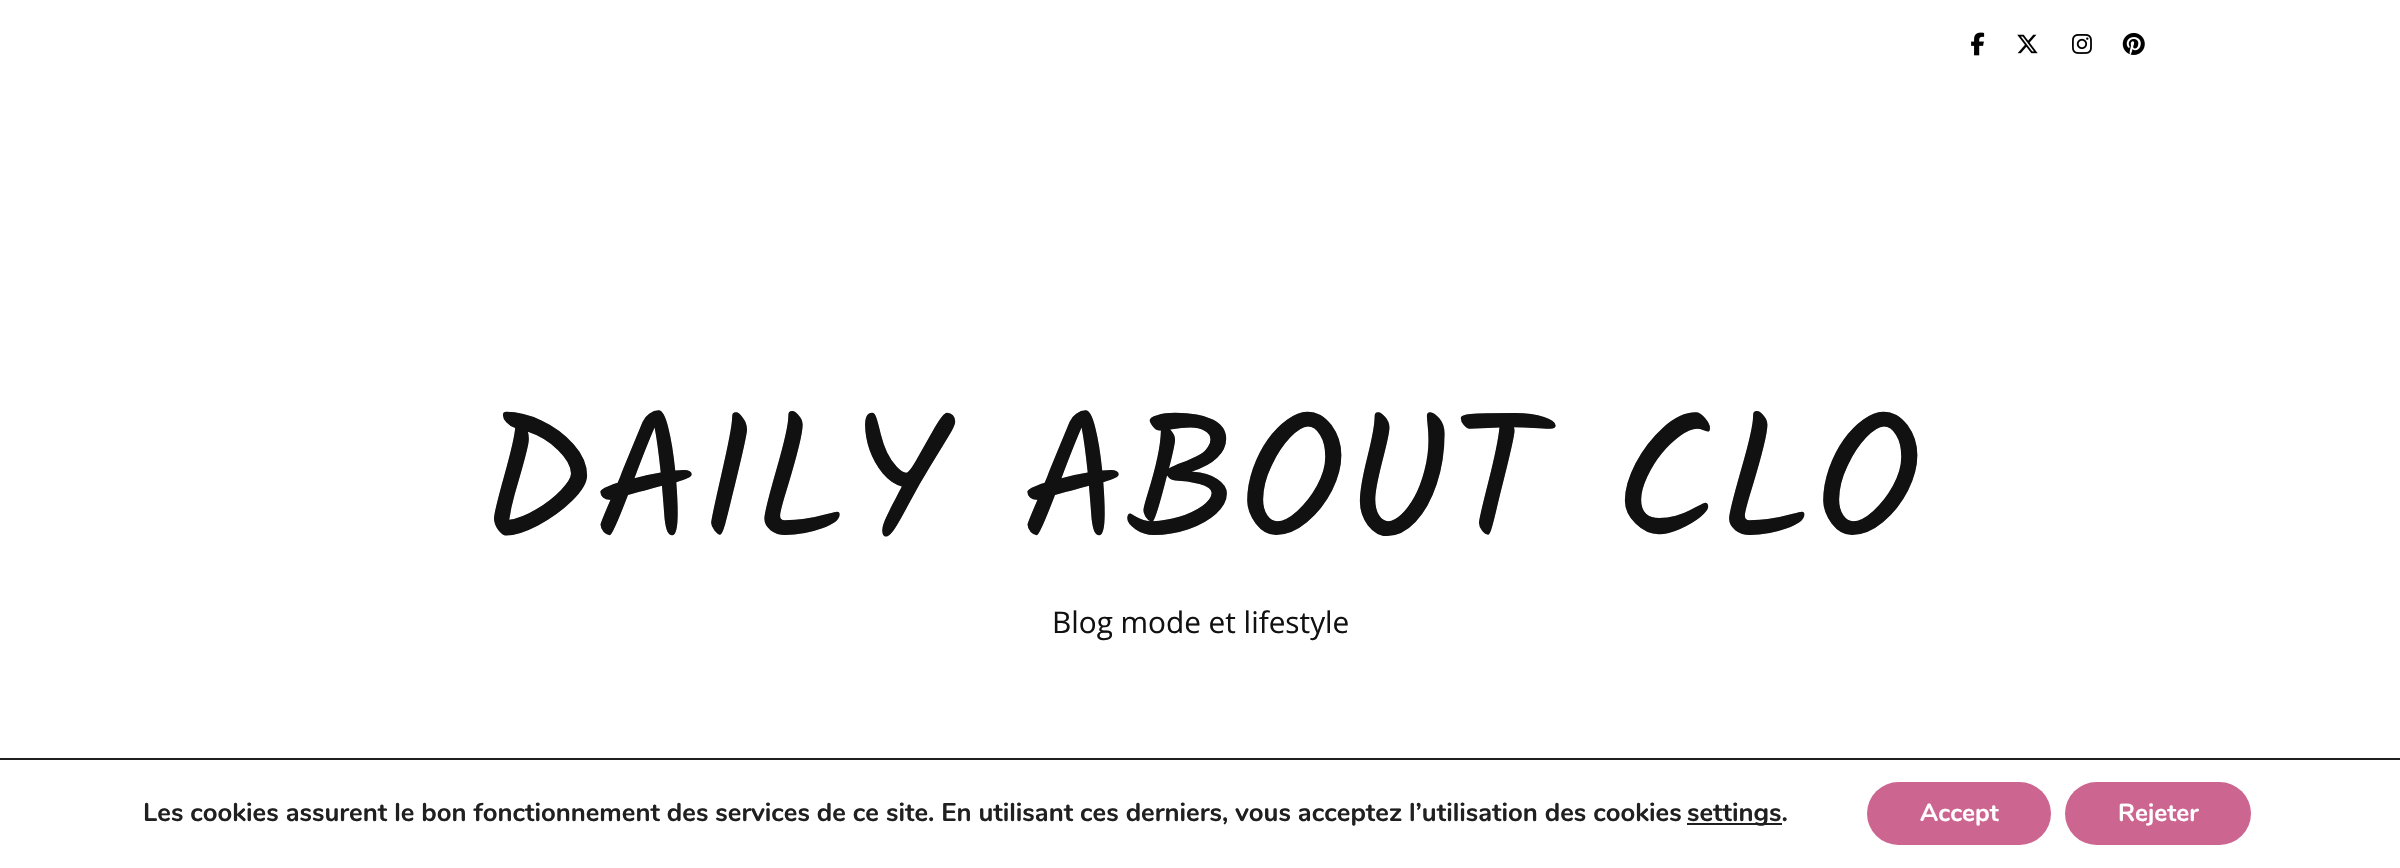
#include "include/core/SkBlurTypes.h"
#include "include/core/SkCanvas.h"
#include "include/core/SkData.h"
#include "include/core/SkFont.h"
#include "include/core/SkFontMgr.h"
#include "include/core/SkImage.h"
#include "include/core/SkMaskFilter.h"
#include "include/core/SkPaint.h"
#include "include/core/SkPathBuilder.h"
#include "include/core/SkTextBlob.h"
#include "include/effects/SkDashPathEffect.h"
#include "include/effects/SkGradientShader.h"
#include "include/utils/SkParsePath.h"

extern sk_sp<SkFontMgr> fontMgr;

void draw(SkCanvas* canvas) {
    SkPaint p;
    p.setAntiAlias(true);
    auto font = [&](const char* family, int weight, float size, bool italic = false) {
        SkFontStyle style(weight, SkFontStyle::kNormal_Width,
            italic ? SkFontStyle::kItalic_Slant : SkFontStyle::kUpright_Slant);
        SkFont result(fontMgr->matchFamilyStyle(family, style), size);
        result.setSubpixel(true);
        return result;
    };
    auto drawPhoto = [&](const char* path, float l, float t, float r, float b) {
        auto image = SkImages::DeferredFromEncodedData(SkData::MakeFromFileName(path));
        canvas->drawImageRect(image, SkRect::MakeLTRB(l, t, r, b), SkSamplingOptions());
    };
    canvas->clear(0xFFFFFFFF);
    drawPhoto("media/1.png", 1971, 32, 1985, 56);
    drawPhoto("media/2.png", 2017, 34, 2038, 54);
    drawPhoto("media/3.png", 2072, 34, 2092, 54);
    drawPhoto("media/4.png", 2122, 32, 2145, 55);
    auto font1 = font("Kalam", 400, 175);
    p.setColor(0xFF111111);
    canvas->drawString("DAILY ABOUT CLO", 480, 538, font1, p);
    auto font2 = font("Open Sans", 400, 29.75f);
    canvas->drawString("Blog mode et lifestyle", 1052, 633, font2, p);
    p.setColor(0xFF202020);
    canvas->drawRect(SkRect::MakeLTRB(0, 758, 2400, 760), p);
    auto font3 = font("Nunito", 700, 25.67f);
    canvas->drawString("Les cookies assurent le bon fonctionnement des services de ce site. En utilisant ces derniers, vous acceptez l’utilisation des cookies", 143, 821, font3, p);
    canvas->drawRect(SkRect::MakeLTRB(1687, 823, 1782, 825), p);
    canvas->drawString("settings.", 1687, 821, font3, p);
    p.setColor(0xFFCC6590);
    canvas->drawRoundRect(SkRect::MakeLTRB(1867, 782, 2051, 845), 31.5f, 31.5f, p);
    auto font4 = font("Nunito", 700, 24.5f);
    p.setColor(0xFFFFFFFF);
    canvas->drawString("Accept", 1920, 821, font4, p);
    p.setColor(0xFFCC6590);
    canvas->drawRoundRect(SkRect::MakeLTRB(2065, 782, 2251, 845), 31.5f, 31.5f, p);
    p.setColor(0xFFFFFFFF);
    canvas->drawString("Rejeter", 2118, 821, font4, p);
}
